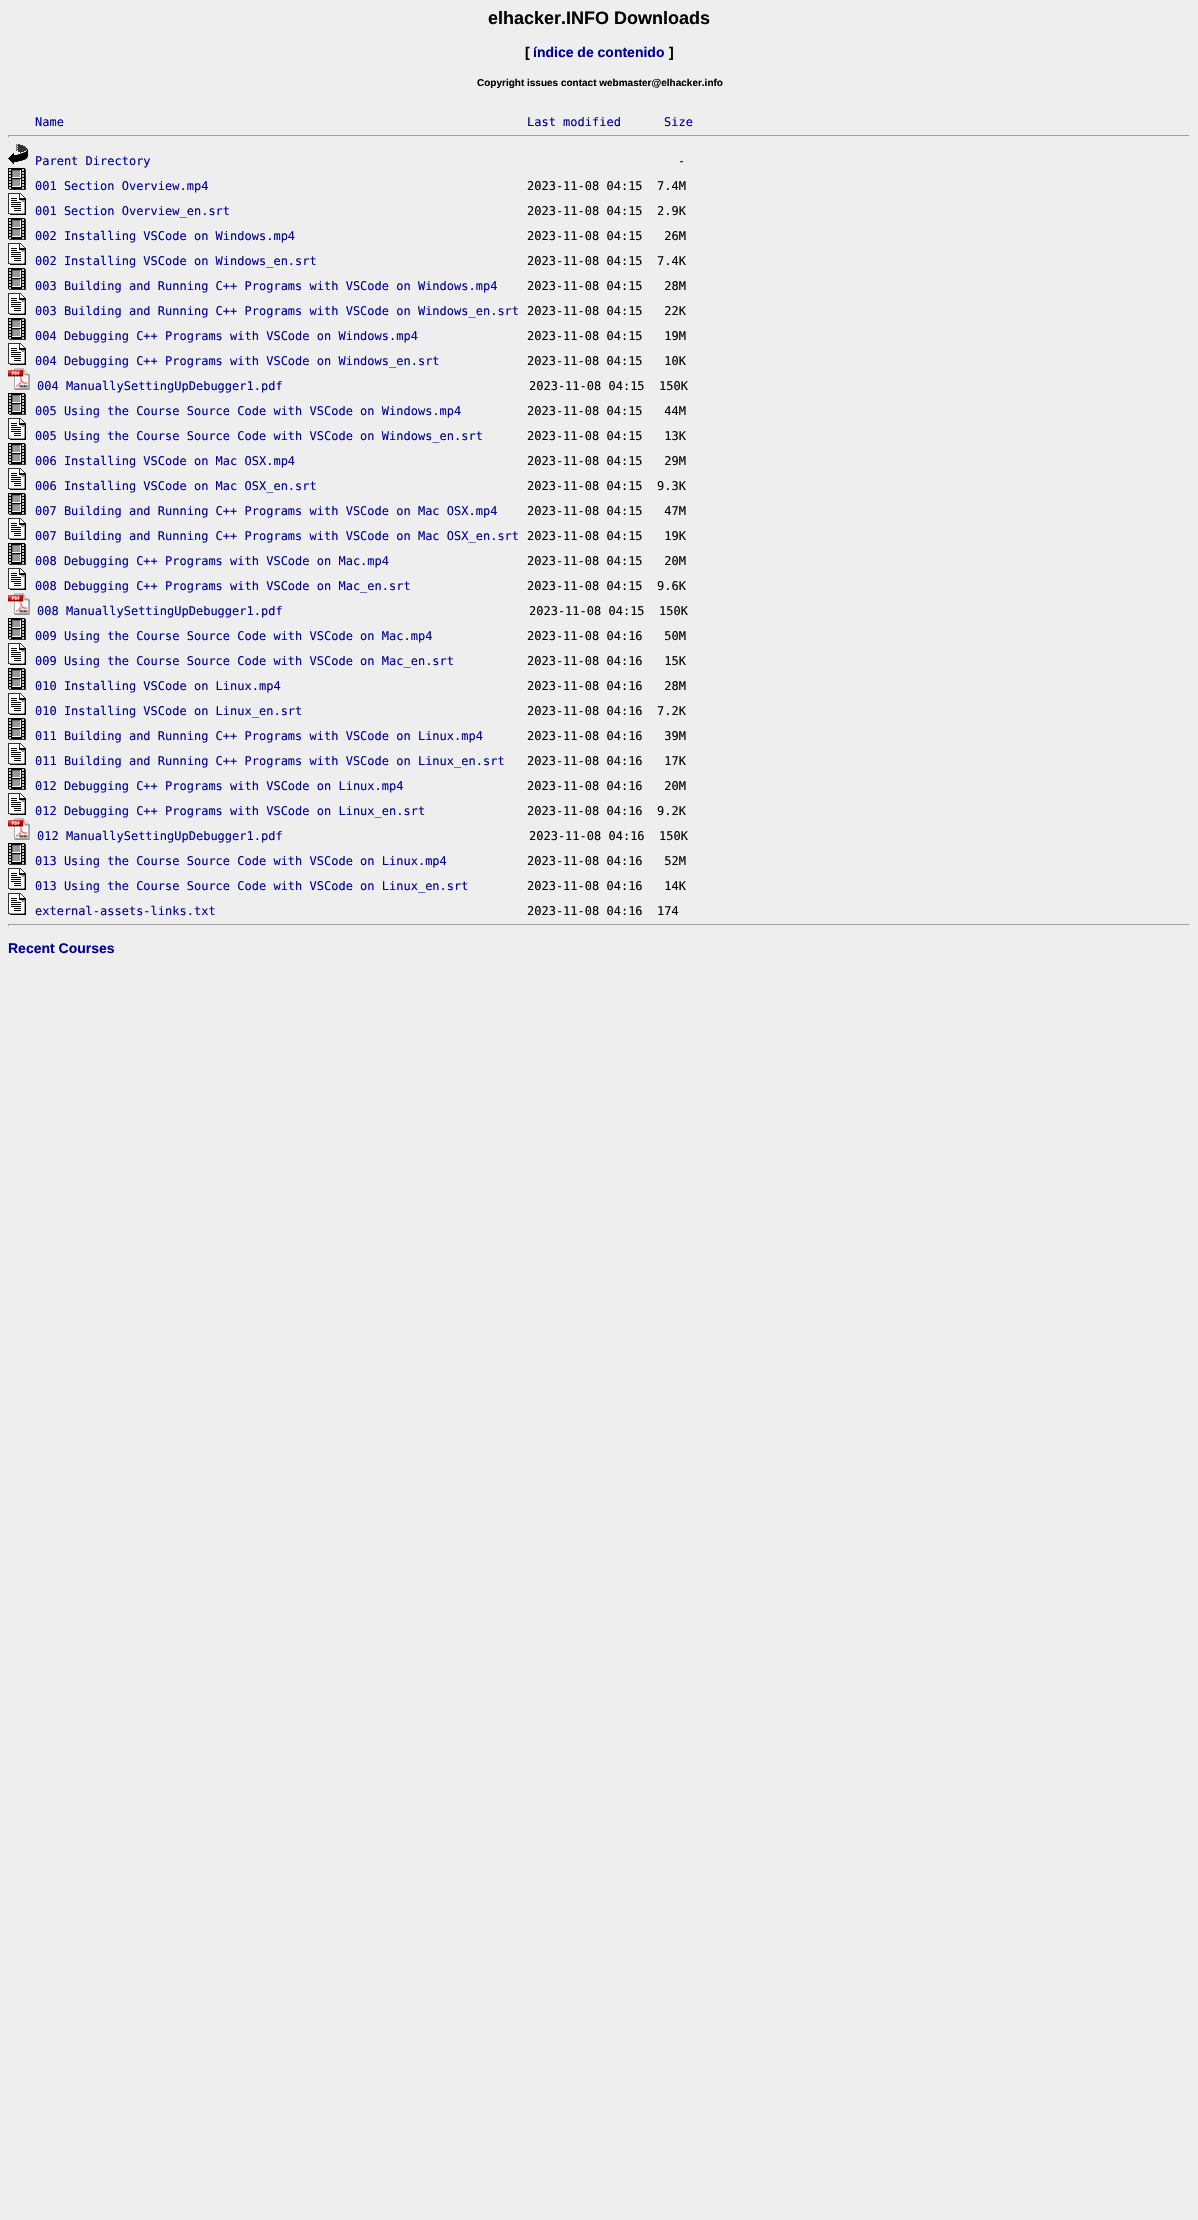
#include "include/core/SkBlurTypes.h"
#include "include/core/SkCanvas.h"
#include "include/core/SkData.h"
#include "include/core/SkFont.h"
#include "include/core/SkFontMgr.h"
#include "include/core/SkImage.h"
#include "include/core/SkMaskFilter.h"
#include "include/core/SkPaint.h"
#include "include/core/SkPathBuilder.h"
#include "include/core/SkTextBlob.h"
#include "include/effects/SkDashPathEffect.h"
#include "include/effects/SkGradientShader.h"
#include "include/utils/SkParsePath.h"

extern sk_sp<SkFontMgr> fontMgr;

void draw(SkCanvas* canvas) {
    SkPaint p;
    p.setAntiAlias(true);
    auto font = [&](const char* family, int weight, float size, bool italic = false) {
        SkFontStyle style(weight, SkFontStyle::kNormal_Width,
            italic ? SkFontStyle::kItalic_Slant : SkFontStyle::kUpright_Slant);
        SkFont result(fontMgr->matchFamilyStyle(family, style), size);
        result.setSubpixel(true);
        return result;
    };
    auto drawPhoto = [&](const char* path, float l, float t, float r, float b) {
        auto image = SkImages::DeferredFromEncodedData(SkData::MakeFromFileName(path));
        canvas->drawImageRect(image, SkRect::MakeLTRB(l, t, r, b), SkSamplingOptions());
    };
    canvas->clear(0xFFEEEEEE);
    auto font1 = font("Liberation Sans", 700, 18);
    p.setColor(0xFF000000);
    canvas->drawString("elhacker.INFO Downloads", 488, 24, font1, p);
    auto font2 = font("Liberation Sans", 700, 14);
    canvas->drawString("[", 525, 57, font2, p);
    p.setColor(0xFF000099);
    canvas->drawString("índice de contenido", 533, 57, font2, p);
    p.setColor(0xFF000000);
    canvas->drawString("]", 669, 57, font2, p);
    auto font3 = font("Liberation Sans", 700, 10);
    canvas->drawString("Copyright issues contact webmaster@elhacker.info", 477, 86, font3, p);
    auto font4 = font("DejaVu Sans Mono", 400, 12);
    p.setColor(0xFF000099);
    {
        const struct { const char* s; float x, y; } items[] = {
            {"Name", 35, 126},
            {"Last modified", 527, 126},
            {"Size", 664, 126},
        };
        for (auto [s, x, y] : items) {
            canvas->drawString(s, x, y, font4, p);
        }
    }
    {
        const struct { float l, t, r, b; SkColor color; } items[] = {
            {8, 135, 1190, 136, 0xFF9F9F9F},
            {1189, 135, 1190, 137, 0xFFEEEEEE},
            {8, 135, 9, 137, 0xFF9F9F9F},
        };
        for (auto [l, t, r, b, color] : items) {
            p.setColor(color);
            canvas->drawRect(SkRect::MakeLTRB(l, t, r, b), p);
        }
    }
    drawPhoto("media/1.png", 8, 144, 28, 164);
    p.setColor(0xFF000099);
    canvas->drawString("Parent Directory", 35, 165, font4, p);
    p.setColor(0xFF000000);
    canvas->drawString("-", 678, 165, font4, p);
    drawPhoto("media/2.png", 8, 168, 26, 190);
    p.setColor(0xFF000099);
    canvas->drawString("001 Section Overview.mp4", 35, 190, font4, p);
    p.setColor(0xFF000000);
    canvas->drawString("2023-11-08 04:15  7.4M", 527, 190, font4, p);
    drawPhoto("media/3.png", 8, 193, 26, 215);
    p.setColor(0xFF000099);
    canvas->drawString("001 Section Overview_en.srt", 35, 215, font4, p);
    p.setColor(0xFF000000);
    canvas->drawString("2023-11-08 04:15  2.9K", 527, 215, font4, p);
    drawPhoto("media/2.png", 8, 218, 26, 240);
    p.setColor(0xFF000099);
    canvas->drawString("002 Installing VSCode on Windows.mp4", 35, 240, font4, p);
    p.setColor(0xFF000000);
    canvas->drawString("2023-11-08 04:15   26M", 527, 240, font4, p);
    drawPhoto("media/3.png", 8, 243, 26, 265);
    p.setColor(0xFF000099);
    canvas->drawString("002 Installing VSCode on Windows_en.srt", 35, 265, font4, p);
    p.setColor(0xFF000000);
    canvas->drawString("2023-11-08 04:15  7.4K", 527, 265, font4, p);
    drawPhoto("media/2.png", 8, 268, 26, 290);
    p.setColor(0xFF000099);
    canvas->drawString("003 Building and Running C++ Programs with VSCode on Windows.mp4", 35, 290, font4, p);
    p.setColor(0xFF000000);
    canvas->drawString("2023-11-08 04:15   28M", 527, 290, font4, p);
    drawPhoto("media/3.png", 8, 293, 26, 315);
    p.setColor(0xFF000099);
    canvas->drawString("003 Building and Running C++ Programs with VSCode on Windows_en.srt", 35, 315, font4, p);
    p.setColor(0xFF000000);
    canvas->drawString("2023-11-08 04:15   22K", 527, 315, font4, p);
    drawPhoto("media/2.png", 8, 318, 26, 340);
    p.setColor(0xFF000099);
    canvas->drawString("004 Debugging C++ Programs with VSCode on Windows.mp4", 35, 340, font4, p);
    p.setColor(0xFF000000);
    canvas->drawString("2023-11-08 04:15   19M", 527, 340, font4, p);
    drawPhoto("media/3.png", 8, 343, 26, 365);
    p.setColor(0xFF000099);
    canvas->drawString("004 Debugging C++ Programs with VSCode on Windows_en.srt", 35, 365, font4, p);
    p.setColor(0xFF000000);
    canvas->drawString("2023-11-08 04:15   10K", 527, 365, font4, p);
    drawPhoto("media/4.png", 8, 368, 30, 390);
    p.setColor(0xFF000099);
    canvas->drawString("004 ManuallySettingUpDebugger1.pdf", 37, 390, font4, p);
    p.setColor(0xFF000000);
    canvas->drawString("2023-11-08 04:15  150K", 529, 390, font4, p);
    drawPhoto("media/2.png", 8, 393, 26, 415);
    p.setColor(0xFF000099);
    canvas->drawString("005 Using the Course Source Code with VSCode on Windows.mp4", 35, 415, font4, p);
    p.setColor(0xFF000000);
    canvas->drawString("2023-11-08 04:15   44M", 527, 415, font4, p);
    drawPhoto("media/3.png", 8, 418, 26, 440);
    p.setColor(0xFF000099);
    canvas->drawString("005 Using the Course Source Code with VSCode on Windows_en.srt", 35, 440, font4, p);
    p.setColor(0xFF000000);
    canvas->drawString("2023-11-08 04:15   13K", 527, 440, font4, p);
    drawPhoto("media/2.png", 8, 443, 26, 465);
    p.setColor(0xFF000099);
    canvas->drawString("006 Installing VSCode on Mac OSX.mp4", 35, 465, font4, p);
    p.setColor(0xFF000000);
    canvas->drawString("2023-11-08 04:15   29M", 527, 465, font4, p);
    drawPhoto("media/3.png", 8, 468, 26, 490);
    p.setColor(0xFF000099);
    canvas->drawString("006 Installing VSCode on Mac OSX_en.srt", 35, 490, font4, p);
    p.setColor(0xFF000000);
    canvas->drawString("2023-11-08 04:15  9.3K", 527, 490, font4, p);
    drawPhoto("media/2.png", 8, 493, 26, 515);
    p.setColor(0xFF000099);
    canvas->drawString("007 Building and Running C++ Programs with VSCode on Mac OSX.mp4", 35, 515, font4, p);
    p.setColor(0xFF000000);
    canvas->drawString("2023-11-08 04:15   47M", 527, 515, font4, p);
    drawPhoto("media/3.png", 8, 518, 26, 540);
    p.setColor(0xFF000099);
    canvas->drawString("007 Building and Running C++ Programs with VSCode on Mac OSX_en.srt", 35, 540, font4, p);
    p.setColor(0xFF000000);
    canvas->drawString("2023-11-08 04:15   19K", 527, 540, font4, p);
    drawPhoto("media/2.png", 8, 543, 26, 565);
    p.setColor(0xFF000099);
    canvas->drawString("008 Debugging C++ Programs with VSCode on Mac.mp4", 35, 565, font4, p);
    p.setColor(0xFF000000);
    canvas->drawString("2023-11-08 04:15   20M", 527, 565, font4, p);
    drawPhoto("media/3.png", 8, 568, 26, 590);
    p.setColor(0xFF000099);
    canvas->drawString("008 Debugging C++ Programs with VSCode on Mac_en.srt", 35, 590, font4, p);
    p.setColor(0xFF000000);
    canvas->drawString("2023-11-08 04:15  9.6K", 527, 590, font4, p);
    drawPhoto("media/4.png", 8, 593, 30, 615);
    p.setColor(0xFF000099);
    canvas->drawString("008 ManuallySettingUpDebugger1.pdf", 37, 615, font4, p);
    p.setColor(0xFF000000);
    canvas->drawString("2023-11-08 04:15  150K", 529, 615, font4, p);
    drawPhoto("media/2.png", 8, 618, 26, 640);
    p.setColor(0xFF000099);
    canvas->drawString("009 Using the Course Source Code with VSCode on Mac.mp4", 35, 640, font4, p);
    p.setColor(0xFF000000);
    canvas->drawString("2023-11-08 04:16   50M", 527, 640, font4, p);
    drawPhoto("media/3.png", 8, 643, 26, 665);
    p.setColor(0xFF000099);
    canvas->drawString("009 Using the Course Source Code with VSCode on Mac_en.srt", 35, 665, font4, p);
    p.setColor(0xFF000000);
    canvas->drawString("2023-11-08 04:16   15K", 527, 665, font4, p);
    drawPhoto("media/2.png", 8, 668, 26, 690);
    p.setColor(0xFF000099);
    canvas->drawString("010 Installing VSCode on Linux.mp4", 35, 690, font4, p);
    p.setColor(0xFF000000);
    canvas->drawString("2023-11-08 04:16   28M", 527, 690, font4, p);
    drawPhoto("media/3.png", 8, 693, 26, 715);
    p.setColor(0xFF000099);
    canvas->drawString("010 Installing VSCode on Linux_en.srt", 35, 715, font4, p);
    p.setColor(0xFF000000);
    canvas->drawString("2023-11-08 04:16  7.2K", 527, 715, font4, p);
    drawPhoto("media/2.png", 8, 718, 26, 740);
    p.setColor(0xFF000099);
    canvas->drawString("011 Building and Running C++ Programs with VSCode on Linux.mp4", 35, 740, font4, p);
    p.setColor(0xFF000000);
    canvas->drawString("2023-11-08 04:16   39M", 527, 740, font4, p);
    drawPhoto("media/3.png", 8, 743, 26, 765);
    p.setColor(0xFF000099);
    canvas->drawString("011 Building and Running C++ Programs with VSCode on Linux_en.srt", 35, 765, font4, p);
    p.setColor(0xFF000000);
    canvas->drawString("2023-11-08 04:16   17K", 527, 765, font4, p);
    drawPhoto("media/2.png", 8, 768, 26, 790);
    p.setColor(0xFF000099);
    canvas->drawString("012 Debugging C++ Programs with VSCode on Linux.mp4", 35, 790, font4, p);
    p.setColor(0xFF000000);
    canvas->drawString("2023-11-08 04:16   20M", 527, 790, font4, p);
    drawPhoto("media/3.png", 8, 793, 26, 815);
    p.setColor(0xFF000099);
    canvas->drawString("012 Debugging C++ Programs with VSCode on Linux_en.srt", 35, 815, font4, p);
    p.setColor(0xFF000000);
    canvas->drawString("2023-11-08 04:16  9.2K", 527, 815, font4, p);
    drawPhoto("media/4.png", 8, 818, 30, 840);
    p.setColor(0xFF000099);
    canvas->drawString("012 ManuallySettingUpDebugger1.pdf", 37, 840, font4, p);
    p.setColor(0xFF000000);
    canvas->drawString("2023-11-08 04:16  150K", 529, 840, font4, p);
    drawPhoto("media/2.png", 8, 843, 26, 865);
    p.setColor(0xFF000099);
    canvas->drawString("013 Using the Course Source Code with VSCode on Linux.mp4", 35, 865, font4, p);
    p.setColor(0xFF000000);
    canvas->drawString("2023-11-08 04:16   52M", 527, 865, font4, p);
    drawPhoto("media/3.png", 8, 868, 26, 890);
    p.setColor(0xFF000099);
    canvas->drawString("013 Using the Course Source Code with VSCode on Linux_en.srt", 35, 890, font4, p);
    p.setColor(0xFF000000);
    canvas->drawString("2023-11-08 04:16   14K", 527, 890, font4, p);
    drawPhoto("media/3.png", 8, 893, 26, 915);
    p.setColor(0xFF000099);
    canvas->drawString("external-assets-links.txt", 35, 915, font4, p);
    p.setColor(0xFF000000);
    canvas->drawString("2023-11-08 04:16  174", 527, 915, font4, p);
    {
        const struct { float l, t, r, b; SkColor color; } items[] = {
            {8, 924, 1190, 925, 0xFF9F9F9F},
            {1189, 924, 1190, 926, 0xFFEEEEEE},
            {8, 924, 9, 926, 0xFF9F9F9F},
        };
        for (auto [l, t, r, b, color] : items) {
            p.setColor(color);
            canvas->drawRect(SkRect::MakeLTRB(l, t, r, b), p);
        }
    }
    p.setColor(0xFF000099);
    canvas->drawString("Recent Courses", 8, 953, font2, p);
}
